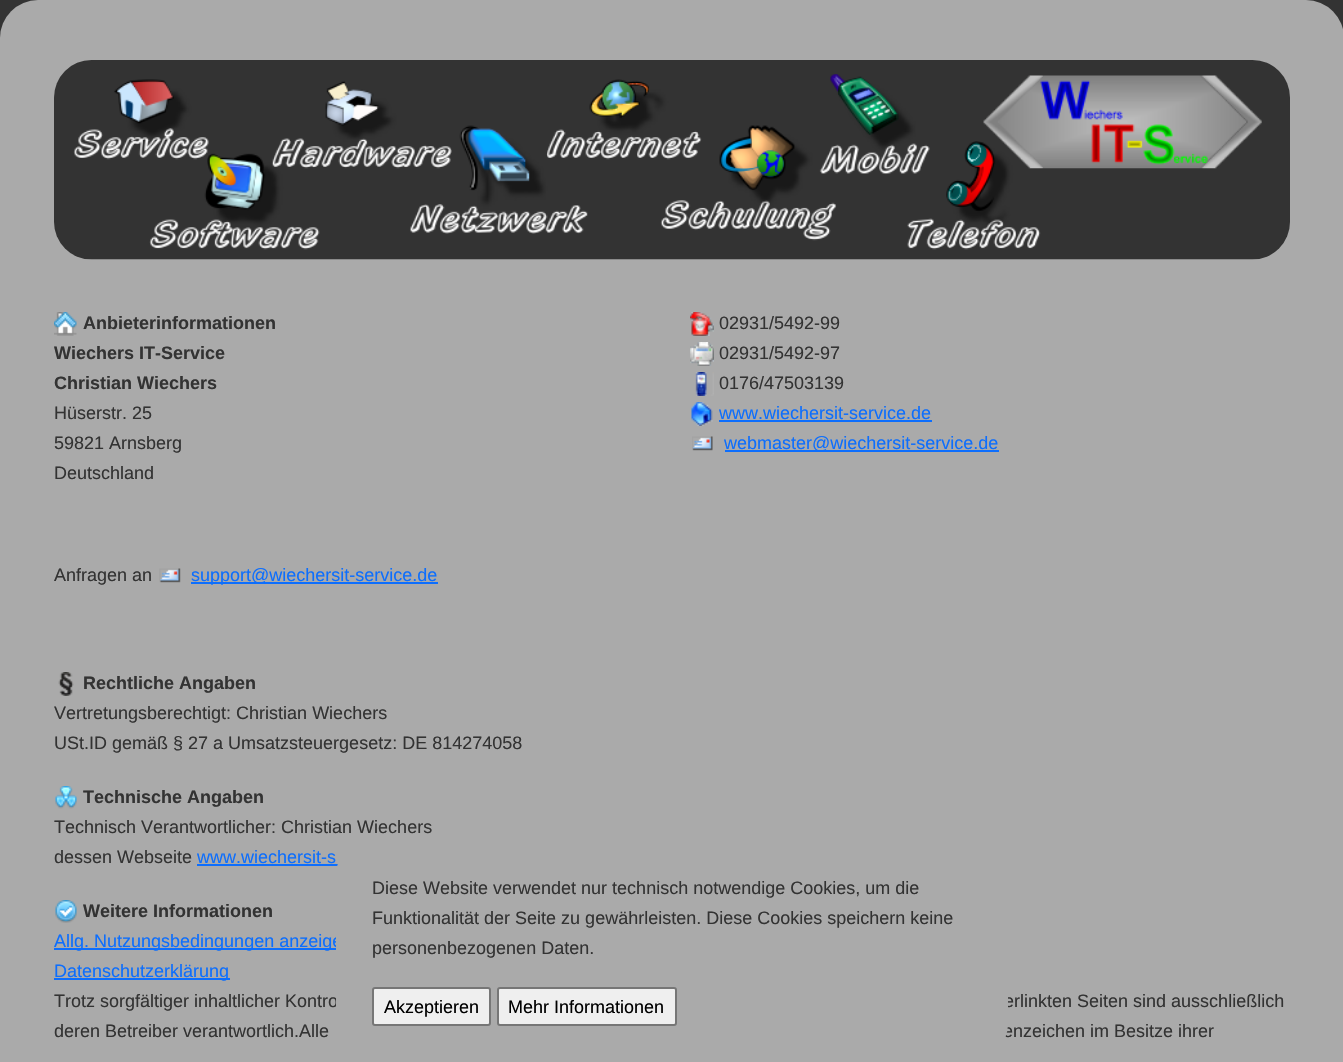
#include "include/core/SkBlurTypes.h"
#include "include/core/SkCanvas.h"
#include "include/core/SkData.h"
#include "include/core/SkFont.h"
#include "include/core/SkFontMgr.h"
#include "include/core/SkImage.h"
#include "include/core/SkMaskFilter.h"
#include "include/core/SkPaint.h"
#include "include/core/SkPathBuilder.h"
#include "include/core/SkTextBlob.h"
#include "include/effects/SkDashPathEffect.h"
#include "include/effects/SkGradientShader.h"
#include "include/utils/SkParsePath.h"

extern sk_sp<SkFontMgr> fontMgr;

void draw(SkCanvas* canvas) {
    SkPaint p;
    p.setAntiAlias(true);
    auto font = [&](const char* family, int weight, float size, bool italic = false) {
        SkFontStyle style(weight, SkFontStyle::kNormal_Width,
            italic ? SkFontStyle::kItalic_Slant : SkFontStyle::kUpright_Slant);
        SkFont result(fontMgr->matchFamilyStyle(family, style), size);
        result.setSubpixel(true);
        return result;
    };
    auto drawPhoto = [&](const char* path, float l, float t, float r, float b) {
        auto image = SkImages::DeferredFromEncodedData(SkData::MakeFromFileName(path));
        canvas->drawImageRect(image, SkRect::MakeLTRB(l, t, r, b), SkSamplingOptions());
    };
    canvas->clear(0xFF333333);
    p.setColor(0xFFAAAAAA);
    canvas->drawRoundRect(SkRect::MakeLTRB(0, 0, 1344, 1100), 38, 38, p);
    drawPhoto("media/1.png", 54, 60, 1290, 260);
    drawPhoto("media/2.png", 54, 312, 77, 336);
    auto font1 = font("Liberation Sans", 700, 18);
    p.setColor(0xFF333333);
    {
        const struct { const char* s; float x, y; } items[] = {
            {"Anbieterinformationen", 83, 329},
            {"Wiechers IT-Service", 54, 359},
            {"Christian Wiechers", 54, 389},
        };
        for (auto [s, x, y] : items) {
            canvas->drawString(s, x, y, font1, p);
        }
    }
    auto font2 = font("Liberation Sans", 400, 18);
    {
        const struct { const char* s; float x, y; } items[] = {
            {"Hüserstr. 25", 54, 419},
            {"59821 Arnsberg", 54, 449},
            {"Deutschland", 54, 479},
        };
        for (auto [s, x, y] : items) {
            canvas->drawString(s, x, y, font2, p);
        }
    }
    drawPhoto("media/3.png", 690, 312, 714, 336);
    canvas->drawString("02931/5492-99", 719, 329, font2, p);
    drawPhoto("media/4.png", 690, 342, 714, 366);
    canvas->drawString("02931/5492-97", 719, 359, font2, p);
    drawPhoto("media/5.png", 695, 372, 714, 396);
    canvas->drawString("0176/47503139", 719, 389, font2, p);
    drawPhoto("media/6.png", 691, 402, 713, 426);
    p.setColor(0xFF0D6EFD);
    canvas->drawString("www.wiechersit-service.de", 719, 419, font2, p);
    canvas->drawRect(SkRect::MakeLTRB(719, 420, 932, 422), p);
    drawPhoto("media/7.png", 692, 436, 713, 451);
    canvas->drawRect(SkRect::MakeLTRB(725, 450, 999, 452), p);
    canvas->drawString("webmaster@wiechersit-service.de", 724, 449, font2, p);
    p.setColor(0xFF333333);
    canvas->drawString("Anfragen an", 54, 581, font2, p);
    drawPhoto("media/8.png", 159, 568, 181, 583);
    p.setColor(0xFF0D6EFD);
    canvas->drawRect(SkRect::MakeLTRB(191, 582, 438, 584), p);
    canvas->drawString("support@wiechersit-service.de", 191, 581, font2, p);
    drawPhoto("media/9.png", 58, 672, 74, 696);
    p.setColor(0xFF333333);
    canvas->drawString("Rechtliche Angaben", 83, 689, font1, p);
    canvas->drawString("Vertretungsberechtigt: Christian Wiechers", 54, 719, font2, p);
    canvas->drawString("USt.ID gemäß § 27 a Umsatzsteuergesetz: DE 814274058", 54, 749, font2, p);
    drawPhoto("media/10.png", 55, 786, 77, 809);
    canvas->drawString("Technische Angaben", 83, 803, font1, p);
    canvas->drawString("Technisch Verantwortlicher: Christian Wiechers", 54, 833, font2, p);
    canvas->drawString("dessen Webseite", 54, 863, font2, p);
    p.setColor(0xFF0D6EFD);
    canvas->drawString("www.wiechersit-s", 197, 863, font2, p);
    canvas->drawRect(SkRect::MakeLTRB(197, 864, 338, 866), p);
    drawPhoto("media/11.png", 55, 900, 77, 923);
    p.setColor(0xFF333333);
    canvas->drawString("Weitere Informationen", 83, 917, font1, p);
    p.setColor(0xFF0D6EFD);
    canvas->drawRect(SkRect::MakeLTRB(54, 948, 336, 950), p);
    canvas->drawString("Allg. Nutzungsbedingungen anzeige", 54, 947, font2, p);
    canvas->drawRect(SkRect::MakeLTRB(54, 978, 230, 980), p);
    canvas->drawString("Datenschutzerklärung", 54, 977, font2, p);
    p.setColor(0xFF333333);
    {
        const struct { const char* s; float x, y; } items[] = {
            {"Trotz sorgfältiger inhaltlicher Kontro", 54, 1007},
            {"erlinkten Seiten sind ausschließlich", 1004, 1007},
            {"deren Betreiber verantwortlich.Alle", 54, 1037},
            {"enzeichen im Besitze ihrer", 1003, 1037},
        };
        for (auto [s, x, y] : items) {
            canvas->drawString(s, x, y, font2, p);
        }
    }
    p.setColor(0xFFAAAAAA);
    canvas->drawRoundRect(SkRect::MakeLTRB(336, 837, 1008, 1062), 38, 38, p);
    p.setColor(0xFF333333);
    {
        const struct { const char* s; float x, y; } items[] = {
            {"Diese Website verwendet nur technisch notwendige Cookies, um die", 372, 894},
            {"Funktionalität der Seite zu gewährleisten. Diese Cookies speichern keine", 372, 924},
            {"personenbezogenen Daten.", 372, 954},
        };
        for (auto [s, x, y] : items) {
            canvas->drawString(s, x, y, font2, p);
        }
    }
    p.setColor(0xFFEFEFEF);
    canvas->drawRoundRect(SkRect::MakeLTRB(373, 988, 490, 1025), 2, 2, p);
    p.setStyle(SkPaint::kStroke_Style);
    p.setStrokeWidth(2);
    p.setColor(0xFF767676);
    canvas->drawRoundRect(SkRect::MakeLTRB(373, 988, 490, 1025), 2, 2, p);
    p.setStyle(SkPaint::kFill_Style);
    p.setColor(0xFF000000);
    canvas->drawString("Akzeptieren", 384, 1013, font2, p);
    p.setColor(0xFFEFEFEF);
    canvas->drawRoundRect(SkRect::MakeLTRB(498, 988, 676, 1025), 2, 2, p);
    p.setStyle(SkPaint::kStroke_Style);
    p.setColor(0xFF767676);
    canvas->drawRoundRect(SkRect::MakeLTRB(498, 988, 676, 1025), 2, 2, p);
    p.setStyle(SkPaint::kFill_Style);
    p.setColor(0xFF000000);
    canvas->drawString("Mehr Informationen", 508, 1013, font2, p);
}
